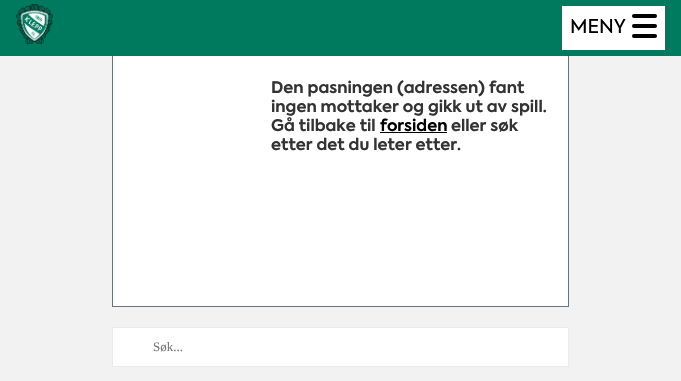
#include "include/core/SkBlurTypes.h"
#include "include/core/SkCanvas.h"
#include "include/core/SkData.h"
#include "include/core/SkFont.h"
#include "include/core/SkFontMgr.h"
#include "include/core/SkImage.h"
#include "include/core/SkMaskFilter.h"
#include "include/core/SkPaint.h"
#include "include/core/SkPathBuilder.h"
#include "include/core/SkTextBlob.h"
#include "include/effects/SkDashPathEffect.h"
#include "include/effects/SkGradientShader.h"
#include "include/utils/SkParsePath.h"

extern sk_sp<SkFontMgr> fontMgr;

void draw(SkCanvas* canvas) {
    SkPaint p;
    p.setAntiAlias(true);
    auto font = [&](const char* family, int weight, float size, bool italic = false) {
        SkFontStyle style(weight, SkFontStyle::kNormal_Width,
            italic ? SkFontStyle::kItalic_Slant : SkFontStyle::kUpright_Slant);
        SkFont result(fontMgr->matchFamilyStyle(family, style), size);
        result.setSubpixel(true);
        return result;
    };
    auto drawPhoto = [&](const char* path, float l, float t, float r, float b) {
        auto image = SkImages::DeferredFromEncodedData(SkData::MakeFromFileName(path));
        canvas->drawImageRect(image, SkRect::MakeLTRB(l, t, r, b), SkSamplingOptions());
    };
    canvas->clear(0xFFF2F2F2);
    p.setColor(0xFFFFFFFF);
    canvas->drawRect(SkRect::MakeLTRB(113, 56, 568, 306), p);
    p.setStyle(SkPaint::kStroke_Style);
    p.setStrokeWidth(1);
    p.setColor(0xFF6A7380);
    canvas->drawRect(SkRect::MakeLTRB(112.5f, 30.5f, 568.5f, 306.5f), p);
    p.setStyle(SkPaint::kFill_Style);
    p.setColor(0xFF007A5F);
    canvas->drawRect(SkRect::MakeLTRB(0, 0, 681, 56), p);
    drawPhoto("media/1.png", 16, 4, 53, 44);
    p.setColor(0xFFFFFFFF);
    canvas->drawRect(SkRect::MakeLTRB(562, 6, 665, 50), p);
    auto font1 = font("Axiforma", 400, 19);
    p.setColor(0xFF000000);
    canvas->drawString("MENY", 570, 33, font1, p);
    canvas->drawRoundRect(SkRect::MakeLTRB(632, 34, 657, 38), 2, 2, p);
    canvas->drawRoundRect(SkRect::MakeLTRB(632, 14, 657, 18), 2, 2, p);
    canvas->drawRoundRect(SkRect::MakeLTRB(632, 24, 657, 28), 2, 2, p);
    auto font2 = font("Axiforma", 700, 16);
    p.setColor(0xFF333333);
    {
        const struct { const char* s; float x, y; } items[] = {
            {"Den pasningen (adressen) fant", 271, 93},
            {"ingen mottaker og gikk ut av spill.", 271, 112},
            {"Gå tilbake til", 271, 131},
        };
        for (auto [s, x, y] : items) {
            canvas->drawString(s, x, y, font2, p);
        }
    }
    p.setColor(0xFF000000);
    canvas->drawString("forsiden", 380, 131, font2, p);
    canvas->drawRect(SkRect::MakeLTRB(380, 132, 447, 133), p);
    p.setColor(0xFF333333);
    canvas->drawString("eller søk", 451, 131, font2, p);
    canvas->drawString("etter det du leter etter.", 271, 150, font2, p);
    p.setColor(0xFFFFFFFF);
    canvas->drawRect(SkRect::MakeLTRB(112.5f, 327.5f, 568.5f, 366.5f), p);
    p.setStyle(SkPaint::kStroke_Style);
    p.setColor(0xFFEBEBEB);
    canvas->drawRect(SkRect::MakeLTRB(112.5f, 327.5f, 568.5f, 366.5f), p);
    auto font3 = font("Liberation Serif", 400, 13);
    p.setStyle(SkPaint::kFill_Style);
    p.setColor(0xFF757575);
    canvas->drawString("Søk...", 153, 351, font3, p);
}
